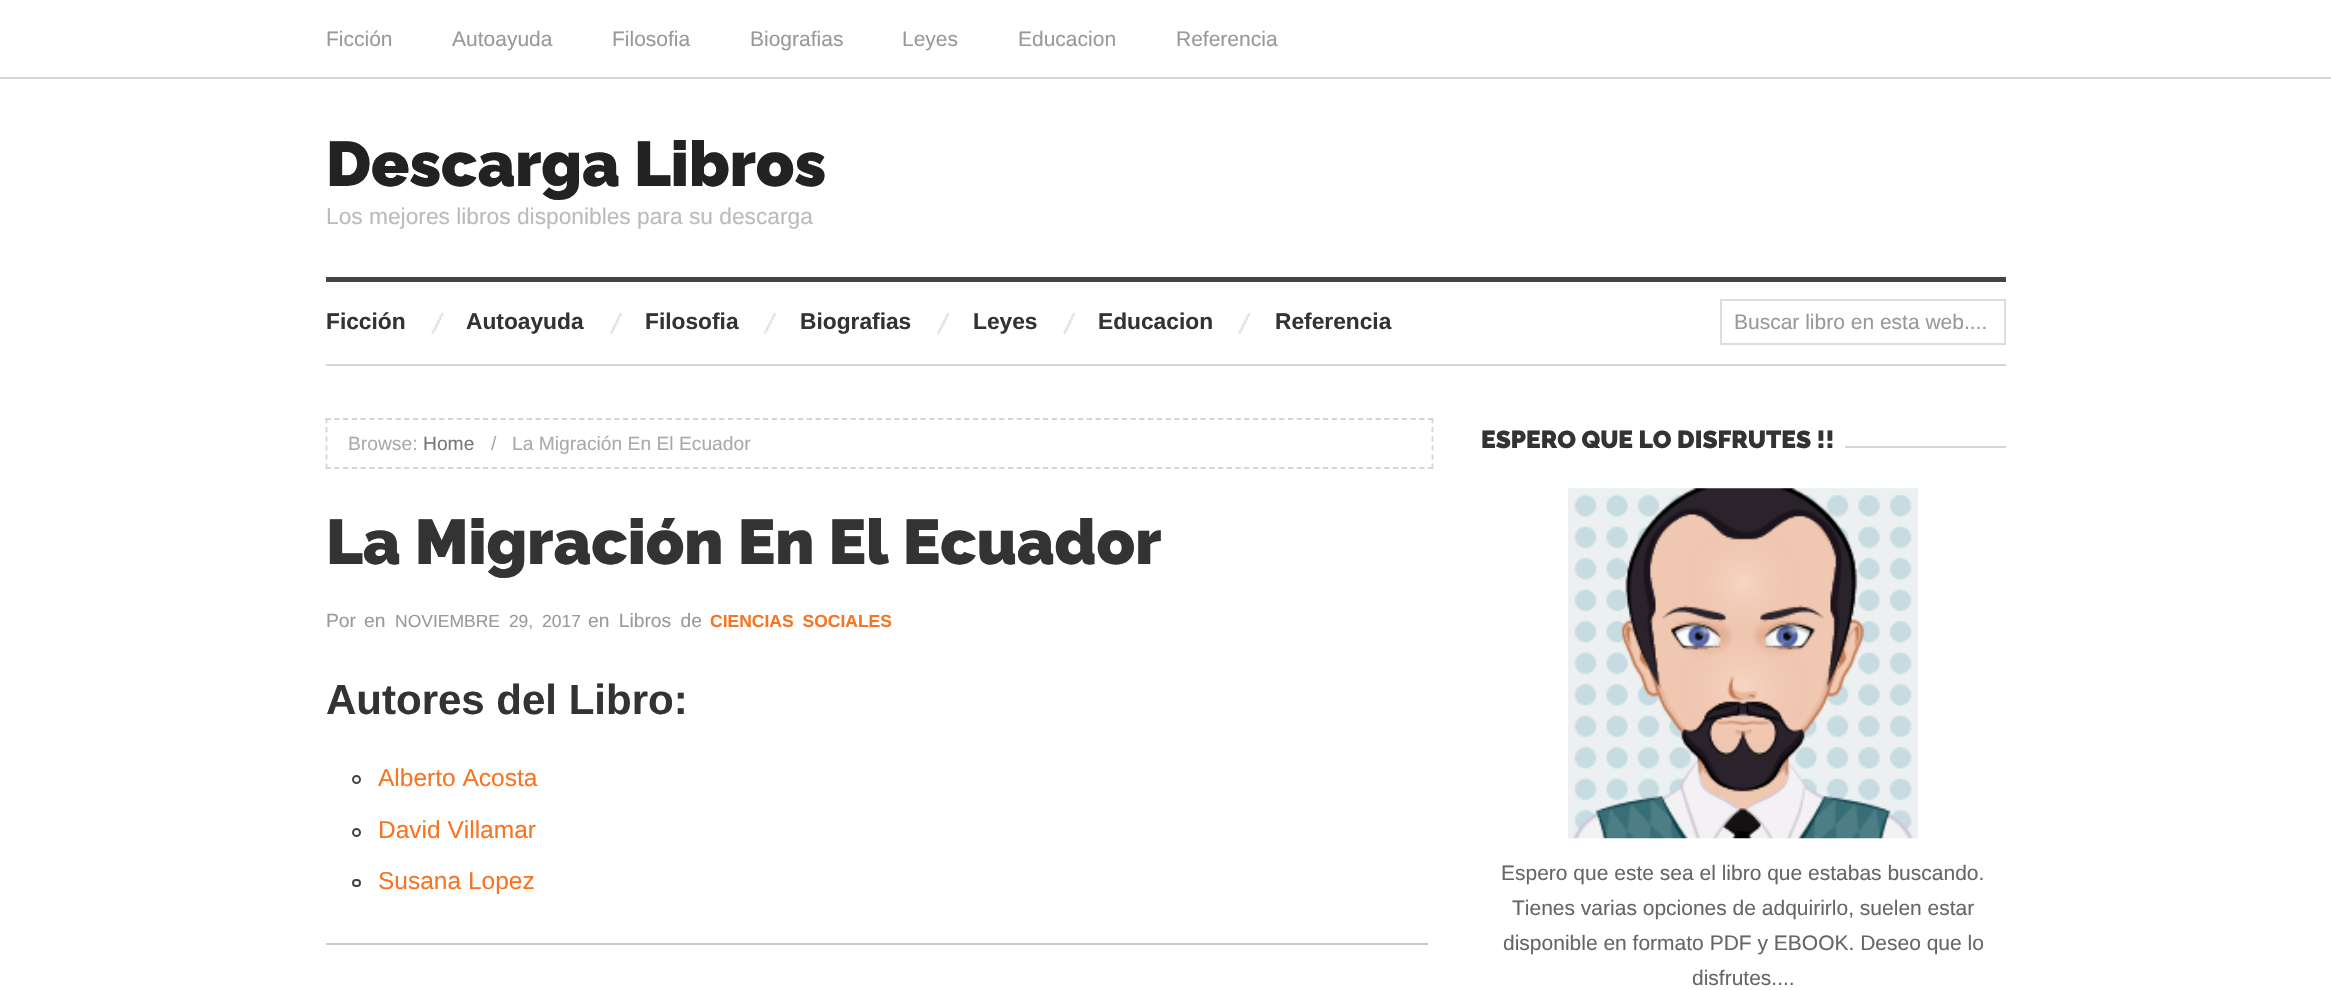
#include "include/core/SkBlurTypes.h"
#include "include/core/SkCanvas.h"
#include "include/core/SkData.h"
#include "include/core/SkFont.h"
#include "include/core/SkFontMgr.h"
#include "include/core/SkImage.h"
#include "include/core/SkMaskFilter.h"
#include "include/core/SkPaint.h"
#include "include/core/SkPathBuilder.h"
#include "include/core/SkTextBlob.h"
#include "include/effects/SkDashPathEffect.h"
#include "include/effects/SkGradientShader.h"
#include "include/utils/SkParsePath.h"

extern sk_sp<SkFontMgr> fontMgr;

void draw(SkCanvas* canvas) {
    SkPaint p;
    p.setAntiAlias(true);
    auto font = [&](const char* family, int weight, float size, bool italic = false) {
        SkFontStyle style(weight, SkFontStyle::kNormal_Width,
            italic ? SkFontStyle::kItalic_Slant : SkFontStyle::kUpright_Slant);
        SkFont result(fontMgr->matchFamilyStyle(family, style), size);
        result.setSubpixel(true);
        return result;
    };
    auto drawTracked = [&](const char* s, float x, float y, const SkFont& font, const SkPaint& ink, float letter, float word) {
        std::vector<SkGlyphID> glyphs(font.countText(s, strlen(s), SkTextEncoding::kUTF8));
        std::vector<float> xs(glyphs.size());
        font.textToGlyphs(s, strlen(s), SkTextEncoding::kUTF8, glyphs);
        font.getXPos(glyphs, xs, x);
        float extra = 0;
        for (size_t i = 0; i < glyphs.size(); i++) {
            xs[i] += extra;
            extra += letter + word * (glyphs[i] == font.unicharToGlyph(' '));
        }
        canvas->drawTextBlob(SkTextBlob::MakeFromPosHGlyphs(glyphs, xs, y, font), 0, 0, ink);
    };
    auto drawPhoto = [&](const char* path, float l, float t, float r, float b) {
        auto image = SkImages::DeferredFromEncodedData(SkData::MakeFromFileName(path));
        canvas->drawImageRect(image, SkRect::MakeLTRB(l, t, r, b), SkSamplingOptions());
    };
    canvas->clear(0xFFFFFFFF);
    p.setColor(0xFFD5D5D5);
    canvas->drawRect(SkRect::MakeLTRB(0, 77, 2331, 79), p);
    auto font1 = font("Liberation Sans", 400, 21);
    p.setColor(0xFF999999);
    {
        const struct { const char* s; float x, y; } items[] = {
            {"Ficción", 326, 46},
            {"Autoayuda", 452, 46},
            {"Filosofia", 612, 46},
            {"Biografias", 750, 46},
            {"Leyes", 902, 46},
            {"Educacion", 1018, 46},
            {"Referencia", 1176, 46},
        };
        for (auto [s, x, y] : items) {
            canvas->drawString(s, x, y, font1, p);
        }
    }
    auto font2 = font("Raleway", 100, 63);
    p.setColor(0xFF222222);
    canvas->drawString("Descarga Libros", 326, 186, font2, p);
    auto font3 = font("Liberation Sans", 400, 22.75f);
    p.setColor(0xFFBBBBBB);
    canvas->drawString("Los mejores libros disponibles para su descarga", 326, 224, font3, p);
    p.setColor(0xFF444444);
    canvas->drawRect(SkRect::MakeLTRB(326, 277, 2006, 282), p);
    p.setColor(0xFFD5D5D5);
    canvas->drawRect(SkRect::MakeLTRB(326, 364, 2006, 366), p);
    auto font4 = font("Liberation Sans", 700, 22.75f);
    p.setColor(0xFF333333);
    canvas->drawString("Ficción", 326, 329, font4, p);
    drawPhoto("media/1.png", 430, 311, 445, 334);
    canvas->drawString("Autoayuda", 466, 329, font4, p);
    drawPhoto("media/2.png", 609, 311, 623, 335);
    canvas->drawString("Filosofia", 645, 329, font4, p);
    drawPhoto("media/2.png", 763, 311, 777, 335);
    canvas->drawString("Biografias", 800, 329, font4, p);
    drawPhoto("media/3.png", 936, 311, 950, 335);
    canvas->drawString("Leyes", 973, 329, font4, p);
    drawPhoto("media/3.png", 1062, 311, 1076, 335);
    canvas->drawString("Educacion", 1098, 329, font4, p);
    drawPhoto("media/3.png", 1237, 311, 1251, 335);
    canvas->drawString("Referencia", 1275, 329, font4, p);
    p.setStyle(SkPaint::kStroke_Style);
    p.setStrokeWidth(2);
    p.setColor(0xFFDDDDDD);
    canvas->drawRect(SkRect::MakeLTRB(1721, 300, 2005, 344), p);
    p.setStyle(SkPaint::kFill_Style);
    p.setColor(0xFF999999);
    canvas->drawString("Buscar libro en esta web....", 1734, 329, font1, p);
    p.setStyle(SkPaint::kStroke_Style);
    p.setStrokeWidth(1.8f);
    p.setColor(0xFFD5D5D5);
    p.setPathEffect(SkDashPathEffect::Make({{5.25f, 3.5f}}, 0));
    canvas->drawPath(SkPathBuilder().moveTo(325.5f, 419).lineTo(1433, 419).detach(), p);
    p.setPathEffect(nullptr);
    p.setPathEffect(SkDashPathEffect::Make({{5.25f, 3.85f}}, 0));
    canvas->drawPath(SkPathBuilder().moveTo(1432.5f, 418).lineTo(1432.5f, 469).detach(), p);
    p.setPathEffect(nullptr);
    p.setPathEffect(SkDashPathEffect::Make({{5.25f, 3.5f}}, 0));
    canvas->drawPath(SkPathBuilder().moveTo(325.5f, 468).lineTo(1433, 468).detach(), p);
    p.setPathEffect(nullptr);
    p.setPathEffect(SkDashPathEffect::Make({{5.25f, 3.85f}}, 0));
    canvas->drawPath(SkPathBuilder().moveTo(326.5f, 418).lineTo(326.5f, 469).detach(), p);
    p.setPathEffect(nullptr);
    auto font5 = font("Liberation Sans", 400, 19.25f);
    p.setStyle(SkPaint::kFill_Style);
    p.setColor(0xFFAAAAAA);
    canvas->drawString("Browse:", 348, 450, font5, p);
    p.setColor(0xFF777777);
    canvas->drawString("Home", 423, 450, font5, p);
    p.setColor(0xFFAAAAAA);
    canvas->drawString("/", 491, 450, font5, p);
    canvas->drawString("La Migración En El Ecuador", 512, 450, font5, p);
    p.setColor(0xFF333333);
    canvas->drawString("La Migración En El Ecuador", 326, 564, font2, p);
    p.setColor(0xFF999999);
    canvas->drawString("Por", 326, 627, font5, p);
    canvas->drawString("en", 364, 627, font5, p);
    auto font6 = font("Liberation Sans", 400, 17.5f);
    drawTracked("NOVIEMBRE 29, 2017", 395, 627, font6, p, 0, 4);
    drawTracked("en Libros de", 588, 627, font5, p, 0, 4);
    auto font7 = font("Liberation Sans", 700, 17.5f);
    p.setColor(0xFFF87421);
    drawTracked("CIENCIAS SOCIALES", 710, 627, font7, p, 0, 4);
    auto font8 = font("Liberation Sans", 700, 42);
    p.setColor(0xFF333333);
    canvas->drawString("Autores del Libro:", 326, 714, font8, p);
    p.setStyle(SkPaint::kStroke_Style);
    p.setStrokeWidth(2);
    p.setColor(0xFF444444);
    canvas->drawCircle(356.5f, 779.5f, 3.5f, p);
    auto font9 = font("Liberation Sans", 400, 24.5f);
    p.setStyle(SkPaint::kFill_Style);
    p.setColor(0xFFF87421);
    canvas->drawString("Alberto Acosta", 378, 786, font9, p);
    p.setStyle(SkPaint::kStroke_Style);
    p.setColor(0xFF444444);
    canvas->drawCircle(356.5f, 832.5f, 3.5f, p);
    p.setStyle(SkPaint::kFill_Style);
    p.setColor(0xFFF87421);
    canvas->drawString("David Villamar", 378, 838, font9, p);
    p.setStyle(SkPaint::kStroke_Style);
    p.setColor(0xFF444444);
    canvas->drawRoundRect(SkRect::MakeLTRB(353, 880, 360, 886), 3, 3, p);
    p.setStyle(SkPaint::kFill_Style);
    p.setColor(0xFFF87421);
    canvas->drawString("Susana Lopez", 378, 889, font9, p);
    p.setColor(0xFFCCCCCC);
    canvas->drawRect(SkRect::MakeLTRB(326, 943, 1428, 945), p);
    p.setColor(0xFFD5D5D5);
    canvas->drawRect(SkRect::MakeLTRB(1845, 446, 2006, 448), p);
    auto font10 = font("Raleway", 100, 24.5f);
    p.setColor(0xFF333333);
    canvas->drawString("ESPERO QUE LO DISFRUTES !!", 1481, 448, font10, p);
    drawPhoto("media/4.png", 1568, 488, 1918, 839);
    p.setColor(0xFF666666);
    {
        const struct { const char* s; float x, y; } items[] = {
            {"Espero que este sea el libro que estabas buscando.", 1501, 880},
            {"Tienes varias opciones de adquirirlo, suelen estar", 1512, 915},
            {"disponible en formato PDF y EBOOK. Deseo que lo", 1503, 950},
            {"disfrutes....", 1692, 985},
        };
        for (auto [s, x, y] : items) {
            canvas->drawString(s, x, y, font1, p);
        }
    }
}
